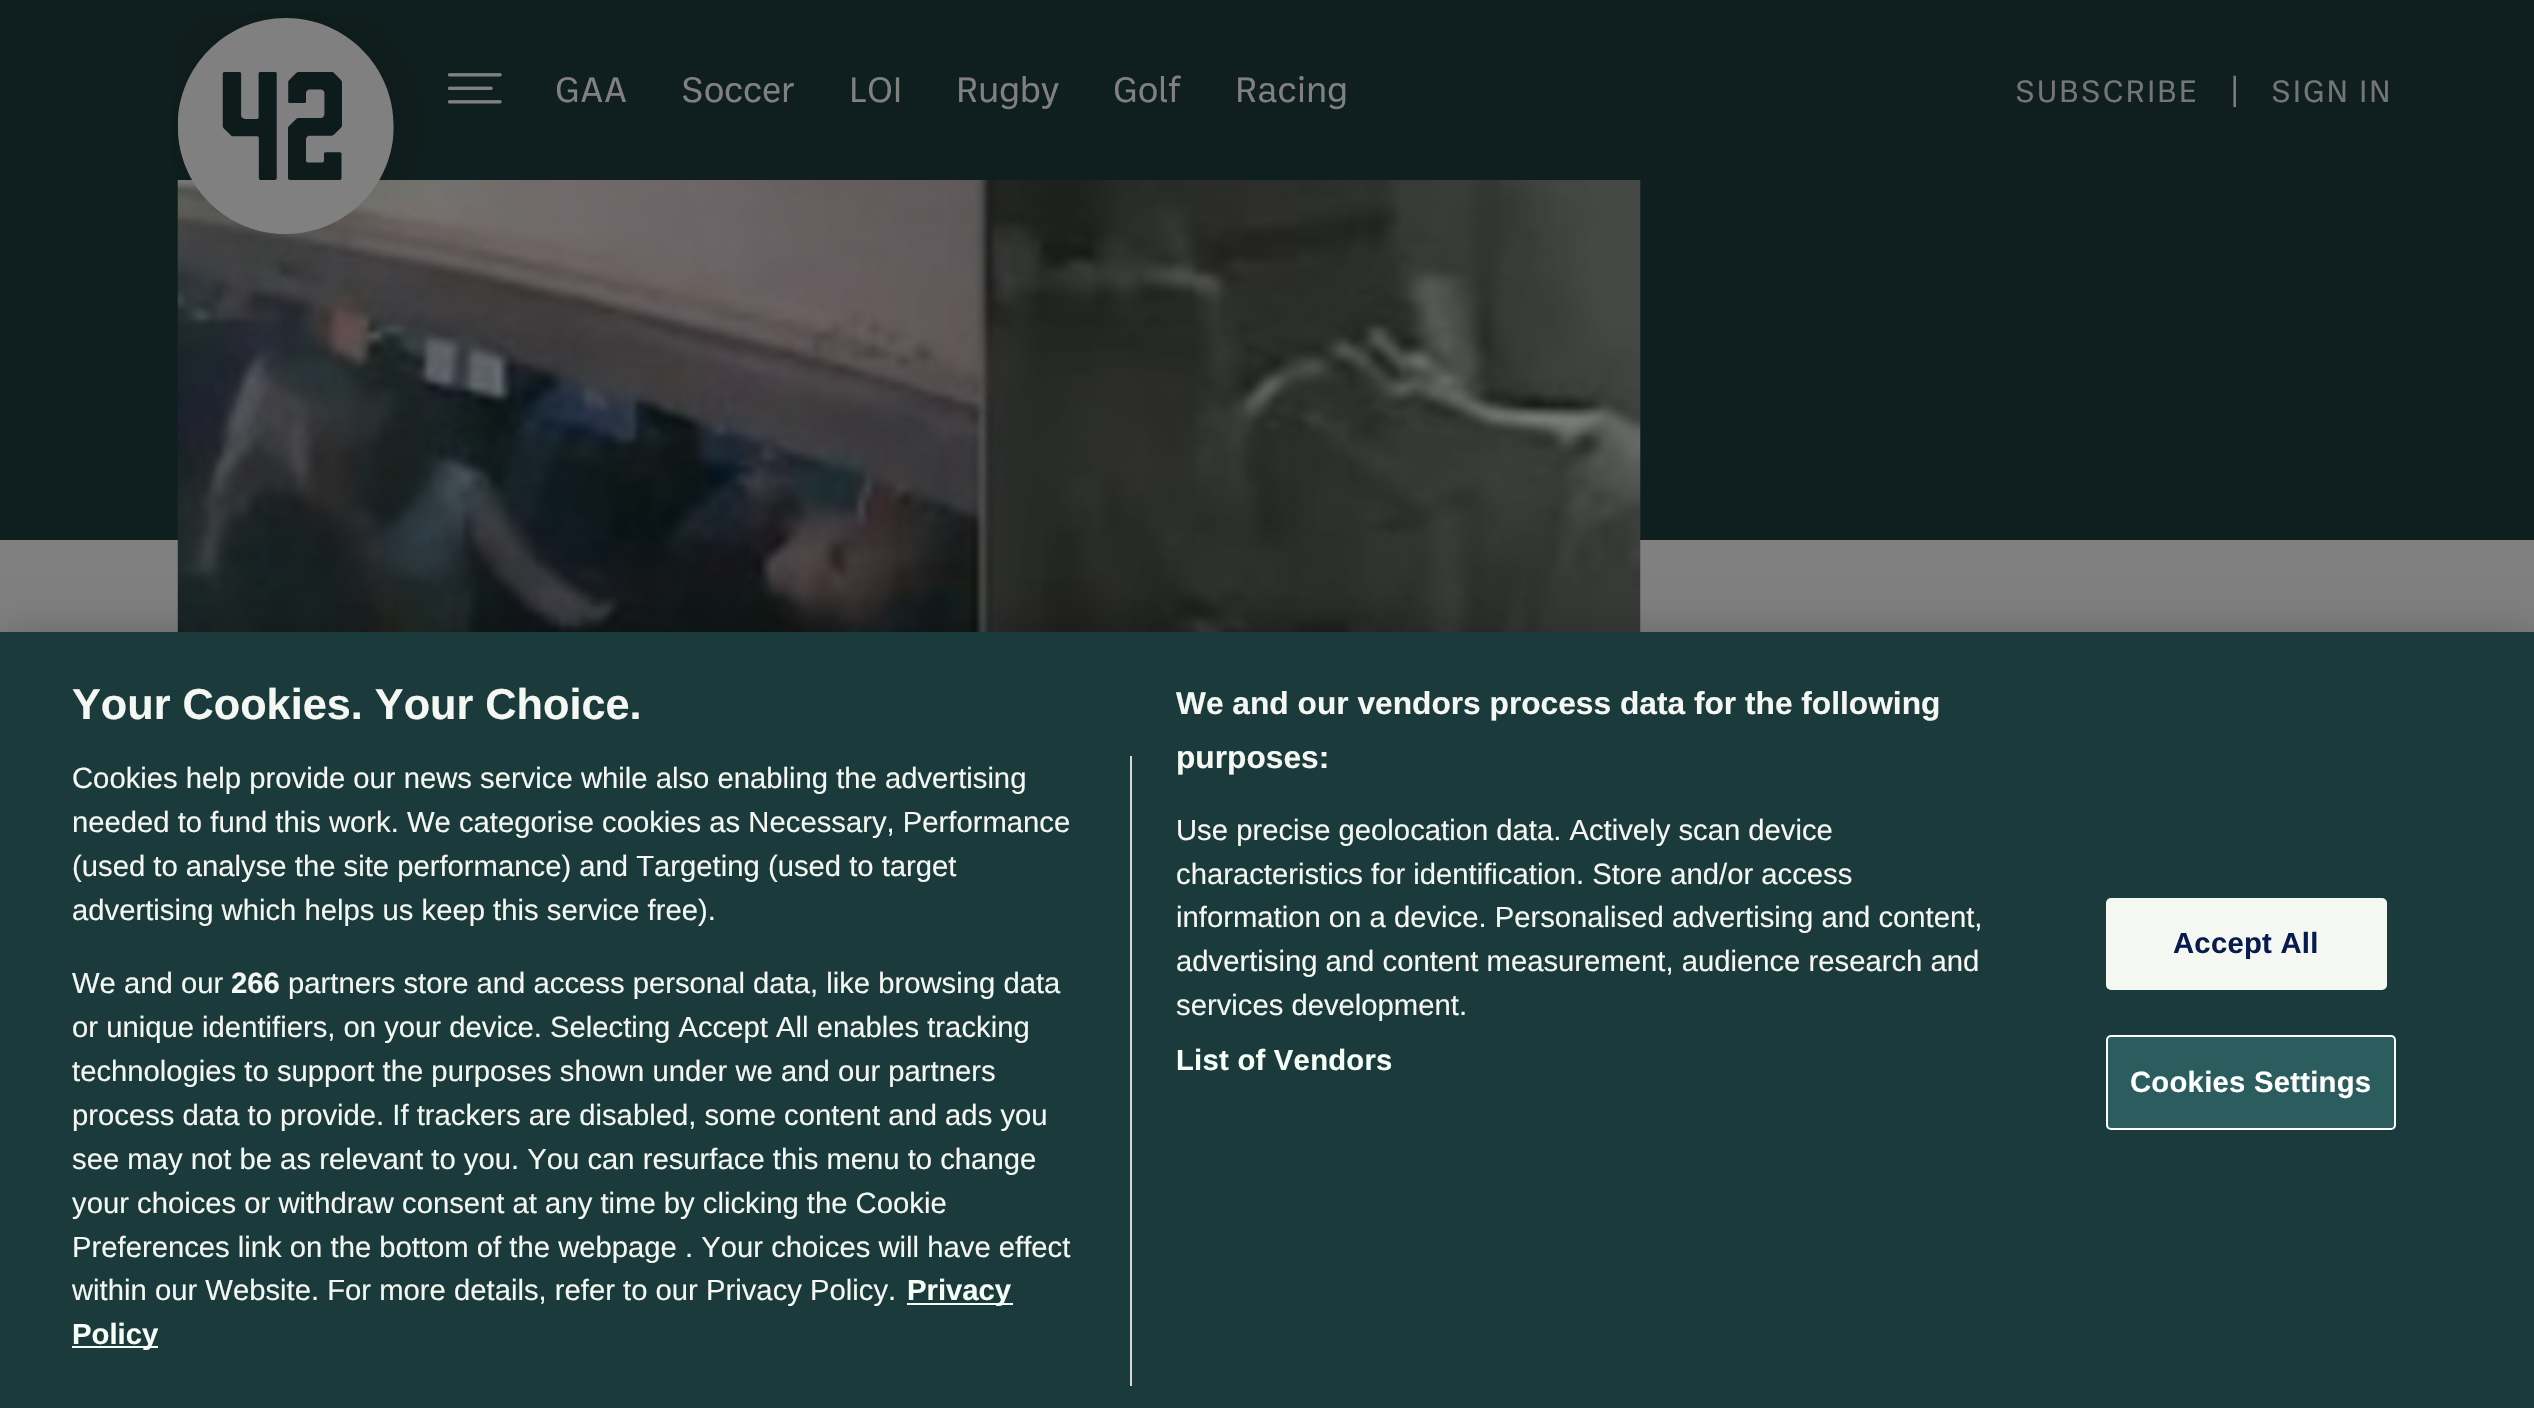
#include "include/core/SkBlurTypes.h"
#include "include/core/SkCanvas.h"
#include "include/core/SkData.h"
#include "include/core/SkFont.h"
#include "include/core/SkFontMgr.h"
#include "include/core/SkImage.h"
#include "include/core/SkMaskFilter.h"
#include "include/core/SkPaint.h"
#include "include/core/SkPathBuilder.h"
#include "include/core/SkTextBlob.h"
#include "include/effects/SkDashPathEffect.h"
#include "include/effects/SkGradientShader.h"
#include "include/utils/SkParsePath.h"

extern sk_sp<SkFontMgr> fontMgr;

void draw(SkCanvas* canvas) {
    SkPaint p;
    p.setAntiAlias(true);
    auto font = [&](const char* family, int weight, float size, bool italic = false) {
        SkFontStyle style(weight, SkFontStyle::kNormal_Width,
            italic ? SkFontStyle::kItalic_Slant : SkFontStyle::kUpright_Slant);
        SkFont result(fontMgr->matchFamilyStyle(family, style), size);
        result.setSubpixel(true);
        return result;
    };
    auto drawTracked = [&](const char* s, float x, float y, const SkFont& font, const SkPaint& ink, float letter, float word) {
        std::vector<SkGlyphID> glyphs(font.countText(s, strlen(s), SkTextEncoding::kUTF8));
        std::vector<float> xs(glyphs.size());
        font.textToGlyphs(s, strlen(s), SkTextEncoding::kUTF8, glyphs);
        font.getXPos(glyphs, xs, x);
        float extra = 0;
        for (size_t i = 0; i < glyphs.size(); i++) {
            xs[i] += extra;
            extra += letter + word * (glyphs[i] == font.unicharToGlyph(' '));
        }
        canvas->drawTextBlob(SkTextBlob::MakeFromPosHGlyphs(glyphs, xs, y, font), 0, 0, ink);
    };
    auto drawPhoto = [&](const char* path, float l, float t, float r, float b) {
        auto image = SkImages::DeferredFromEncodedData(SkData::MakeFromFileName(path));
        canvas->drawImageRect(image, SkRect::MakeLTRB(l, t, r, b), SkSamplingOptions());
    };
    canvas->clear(0xFF808080);
    p.setColor(0xFF0F1E1E);
    canvas->drawRect(SkRect::MakeLTRB(0, 0, 2534, 540), p);
    drawPhoto("media/3.png", 177, 180, 1641, 632);
    drawPhoto("media/1.png", 172, 11, 426, 265);
    drawPhoto("media/2.png", 448, 73, 502, 104);
    auto font1 = font("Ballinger", 400, 36);
    p.setColor(0xFF808080);
    {
        const struct { const char* s; float x, y; } items[] = {
            {"GAA", 555, 102},
            {"Soccer", 681, 102},
            {"LOI", 849, 102},
            {"Rugby", 956, 102},
            {"Golf", 1113, 102},
            {"Racing", 1235, 102},
        };
        for (auto [s, x, y] : items) {
            canvas->drawString(s, x, y, font1, p);
        }
    }
    auto font2 = font("Ballinger", 400, 31.5f);
    p.setColor(0xFF747676);
    drawTracked("SUBSCRIBE", 2015, 102, font2, p, 1.75f, 0);
    p.setColor(0xFF808080);
    drawTracked("|", 2227, 101, font2, p, 1.75f, 0);
    p.setColor(0xFF747676);
    drawTracked("SIGN IN", 2271, 102, font2, p, 1.75f, 0);
    p.setColor(0x33000000);
    p.setMaskFilter(SkMaskFilter::MakeBlur(kNormal_SkBlurStyle, 20));
    canvas->drawRect(SkRect::MakeLTRB(0, 632, 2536, 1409), p);
    p.setMaskFilter(nullptr);
    p.setColor(0xFF1B3A3B);
    canvas->drawRect(SkRect::MakeLTRB(0, 632, 2534, 1408), p);
    auto font3 = font("Liberation Sans", 700, 43.25f);
    p.setColor(0xFFF4F7F2);
    canvas->drawString("Your Cookies. Your Choice.", 72, 719, font3, p);
    auto font4 = font("Liberation Sans", 700, 31.7f);
    canvas->drawString("We and our vendors process data for the following", 1176, 714, font4, p);
    canvas->drawString("purposes:", 1176, 768, font4, p);
    auto font5 = font("Liberation Sans", 400, 29.25f);
    {
        const struct { const char* s; float x, y; } items[] = {
            {"Use precise geolocation data. Actively scan device", 1176, 840},
            {"characteristics for identification. Store and/or access", 1176, 884},
            {"information on a device. Personalised advertising and content,", 1176, 927},
            {"advertising and content measurement, audience research and", 1176, 971},
            {"services development.", 1176, 1015},
        };
        for (auto [s, x, y] : items) {
            canvas->drawString(s, x, y, font5, p);
        }
    }
    auto font6 = font("Liberation Sans", 700, 29.25f);
    p.setColor(0xFFF5FFF7);
    drawTracked("List of Vendors", 1176, 1070, font6, p, 0.25f, 0);
    p.setColor(0xFFD8D8D8);
    canvas->drawRect(SkRect::MakeLTRB(1130, 756, 1132, 1386), p);
    p.setColor(0xFFF4F7F2);
    {
        const struct { const char* s; float x, y; } items[] = {
            {"Cookies help provide our news service while also enabling the advertising", 72, 788},
            {"needed to fund this work. We categorise cookies as Necessary, Performance", 72, 832},
            {"(used to analyse the site performance) and Targeting (used to target", 72, 876},
            {"advertising which helps us keep this service free).", 72, 920},
            {"We and our", 72, 993},
        };
        for (auto [s, x, y] : items) {
            canvas->drawString(s, x, y, font5, p);
        }
    }
    canvas->drawString("266", 231, 993, font6, p);
    {
        const struct { const char* s; float x, y; } items[] = {
            {"partners store and access personal data, like browsing data", 288, 993},
            {"or unique identifiers, on your device. Selecting Accept All enables tracking", 72, 1037},
            {"technologies to support the purposes shown under we and our partners", 72, 1081},
            {"process data to provide. If trackers are disabled, some content and ads you", 72, 1125},
            {"see may not be as relevant to you. You can resurface this menu to change", 72, 1169},
            {"your choices or withdraw consent at any time by clicking the Cookie", 72, 1213},
            {"Preferences link on the bottom of the webpage . Your choices will have effect", 72, 1257},
            {"within our Website. For more details, refer to our Privacy Policy.", 72, 1300},
        };
        for (auto [s, x, y] : items) {
            canvas->drawString(s, x, y, font5, p);
        }
    }
    p.setColor(0xFFF5FFF7);
    canvas->drawRect(SkRect::MakeLTRB(907, 1303, 1013, 1305), p);
    canvas->drawString("Privacy", 907, 1300, font6, p);
    canvas->drawRect(SkRect::MakeLTRB(72, 1346, 158, 1348), p);
    canvas->drawString("Policy", 72, 1344, font6, p);
    p.setColor(0xFFF4F7F2);
    canvas->drawRoundRect(SkRect::MakeLTRB(2107, 899, 2386, 989), 4, 4, p);
    p.setStyle(SkPaint::kStroke_Style);
    p.setStrokeWidth(2);
    canvas->drawRoundRect(SkRect::MakeLTRB(2107, 899, 2386, 989), 4, 4, p);
    p.setStyle(SkPaint::kFill_Style);
    p.setColor(0xFF081B4F);
    drawTracked("Accept All", 2173, 953, font6, p, 0.25f, 0);
    p.setColor(0xFF2B5D5E);
    canvas->drawRoundRect(SkRect::MakeLTRB(2107, 1036, 2395, 1129), 4, 4, p);
    p.setStyle(SkPaint::kStroke_Style);
    p.setColor(0xFFFFFFFF);
    canvas->drawRoundRect(SkRect::MakeLTRB(2107, 1036, 2395, 1129), 4, 4, p);
    p.setStyle(SkPaint::kFill_Style);
    drawTracked("Cookies Settings", 2130, 1092, font6, p, 0.25f, 0);
}
